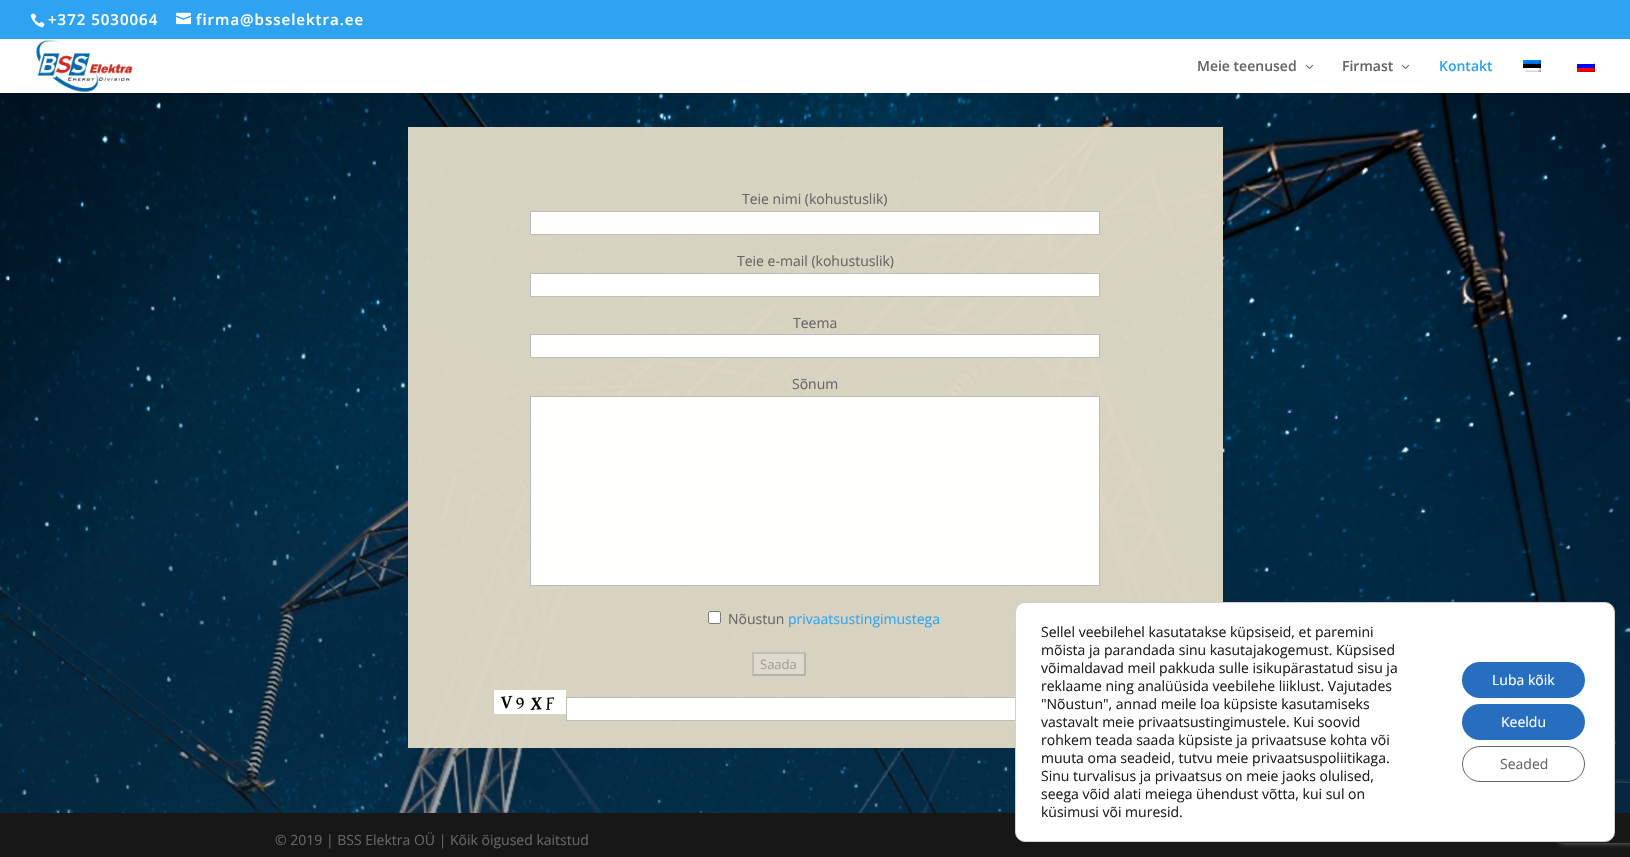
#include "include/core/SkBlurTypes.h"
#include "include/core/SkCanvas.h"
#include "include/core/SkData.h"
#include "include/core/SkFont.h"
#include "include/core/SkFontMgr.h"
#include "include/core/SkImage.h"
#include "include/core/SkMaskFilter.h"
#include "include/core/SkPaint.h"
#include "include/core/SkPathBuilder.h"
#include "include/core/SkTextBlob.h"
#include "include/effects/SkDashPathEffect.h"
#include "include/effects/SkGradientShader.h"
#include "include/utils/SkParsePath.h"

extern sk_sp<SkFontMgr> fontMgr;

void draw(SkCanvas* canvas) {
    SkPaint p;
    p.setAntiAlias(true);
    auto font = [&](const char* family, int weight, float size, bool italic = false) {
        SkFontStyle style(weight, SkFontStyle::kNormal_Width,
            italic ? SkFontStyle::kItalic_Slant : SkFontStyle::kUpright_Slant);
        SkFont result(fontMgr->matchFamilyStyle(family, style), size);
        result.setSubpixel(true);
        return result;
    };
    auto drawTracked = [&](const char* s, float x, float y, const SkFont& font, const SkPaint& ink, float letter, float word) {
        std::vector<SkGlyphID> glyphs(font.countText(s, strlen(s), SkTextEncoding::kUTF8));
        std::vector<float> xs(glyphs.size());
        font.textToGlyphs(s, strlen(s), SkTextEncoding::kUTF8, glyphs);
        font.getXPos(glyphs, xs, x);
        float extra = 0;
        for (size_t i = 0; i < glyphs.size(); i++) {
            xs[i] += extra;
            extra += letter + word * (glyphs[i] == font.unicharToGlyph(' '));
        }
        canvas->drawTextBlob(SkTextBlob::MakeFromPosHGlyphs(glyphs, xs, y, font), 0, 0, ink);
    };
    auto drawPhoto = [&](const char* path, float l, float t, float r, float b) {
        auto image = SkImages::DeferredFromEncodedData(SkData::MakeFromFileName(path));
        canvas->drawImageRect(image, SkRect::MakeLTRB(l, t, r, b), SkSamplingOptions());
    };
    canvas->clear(0xFF171717);
    drawPhoto("media/7.png", 0, 93, 1630, 813);
    p.setColor(0x1A000000);
    p.setMaskFilter(SkMaskFilter::MakeBlur(kNormal_SkBlurStyle, 3.5f));
    canvas->drawRect(SkRect::MakeLTRB(0, 39, 1630, 93), p);
    p.setMaskFilter(nullptr);
    p.setColor(0xFF2EA3F2);
    canvas->drawRect(SkRect::MakeLTRB(0, 0, 1630, 39), p);
    drawPhoto("media/1.png", 30, 13, 45, 28);
    auto font1 = font("Open Sans", 600, 15);
    p.setColor(0xFFFFFFFF);
    drawTracked("+372 5030064", 48, 25, font1, p, 1, 0);
    drawPhoto("media/2.png", 176, 12, 191, 25);
    drawTracked("firma@bsselektra.ee", 196, 25, font1, p, 1, 0);
    canvas->drawRect(SkRect::MakeLTRB(0, 39, 1630, 93), p);
    drawPhoto("media/3.png", 34, 39, 135, 93);
    auto font2 = font("Open Sans", 600, 14);
    p.setColor(0xFF666666);
    canvas->drawString("Meie teenused", 1197, 71, font2, p);
    drawPhoto("media/4.png", 1305, 64, 1314, 69);
    canvas->drawString("Firmast", 1342, 71, font2, p);
    drawPhoto("media/4.png", 1401, 64, 1410, 69);
    p.setColor(0xFF31A4F1);
    canvas->drawString("Kontakt", 1439, 71, font2, p);
    drawPhoto("media/5.png", 1523, 60, 1541, 72);
    drawPhoto("media/6.png", 1577, 62, 1595, 72);
    canvas->save();
    canvas->clipPath(SkPathBuilder(SkPathFillType::kEvenOdd).moveTo(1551, 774).lineTo(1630, 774).lineTo(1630, 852).lineTo(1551, 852).close().moveTo(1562, 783).lineTo(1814, 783).cubicTo(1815, 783, 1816, 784, 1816, 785).lineTo(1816, 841).cubicTo(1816, 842, 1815, 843, 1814, 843).lineTo(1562, 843).cubicTo(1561, 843, 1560, 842, 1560, 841).lineTo(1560, 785).cubicTo(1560, 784, 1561, 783, 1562, 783).close().detach(), true);
    p.setColor(0xFF808080);
    p.setMaskFilter(SkMaskFilter::MakeBlur(kNormal_SkBlurStyle, 2.5f));
    canvas->drawRoundRect(SkRect::MakeLTRB(1560, 783, 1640, 843), 2, 2, p);
    p.setMaskFilter(nullptr);
    canvas->restore();
    canvas->save();
    canvas->clipRect(SkRect::MakeLTRB(0, 221, 1630, 813));
    p.setColor(0x26052942);
    canvas->drawPath(SkPathBuilder().moveTo(0, 422).lineTo(216, 221).lineTo(1014, 623).lineTo(1414, 590).lineTo(1630, 422).lineTo(1630, 814).lineTo(0, 814).close().detach(), p);
    p.setColor(0x4D052942);
    canvas->drawPath(SkPathBuilder().moveTo(0, 605).lineTo(178, 485).lineTo(580, 588).lineTo(1014, 500).lineTo(1452, 665).lineTo(1630, 605).lineTo(1630, 814).lineTo(0, 814).close().detach(), p);
    canvas->restore();
    p.setColor(0xFADBD6C3);
    canvas->drawRect(SkRect::MakeLTRB(408, 127, 1223, 748), p);
    auto font3 = font("Open Sans", 400, 14);
    p.setColor(0xFF666666);
    canvas->drawString("Teie nimi (kohustuslik)", 742, 204, font3, p);
    p.setColor(0xFAFFFFFF);
    canvas->drawRect(SkRect::MakeLTRB(530.5f, 211.5f, 1099.5f, 234.5f), p);
    p.setStyle(SkPaint::kStroke_Style);
    p.setStrokeWidth(1);
    p.setColor(0xFFBCBCBC);
    canvas->drawRect(SkRect::MakeLTRB(530.5f, 211.5f, 1099.5f, 234.5f), p);
    p.setStyle(SkPaint::kFill_Style);
    p.setColor(0xFF666666);
    canvas->drawString("Teie e-mail (kohustuslik)", 737, 266, font3, p);
    p.setColor(0xFAFFFFFF);
    canvas->drawRect(SkRect::MakeLTRB(530.5f, 273.5f, 1099.5f, 296.5f), p);
    p.setStyle(SkPaint::kStroke_Style);
    p.setColor(0xFFBCBCBC);
    canvas->drawRect(SkRect::MakeLTRB(530.5f, 273.5f, 1099.5f, 296.5f), p);
    p.setStyle(SkPaint::kFill_Style);
    p.setColor(0xFF666666);
    canvas->drawString("Teema", 793, 328, font3, p);
    p.setColor(0xFAFFFFFF);
    canvas->drawRect(SkRect::MakeLTRB(530.5f, 334.5f, 1099.5f, 357.5f), p);
    p.setStyle(SkPaint::kStroke_Style);
    p.setColor(0xFFBCBCBC);
    canvas->drawRect(SkRect::MakeLTRB(530.5f, 334.5f, 1099.5f, 357.5f), p);
    p.setStyle(SkPaint::kFill_Style);
    p.setColor(0xFF666666);
    canvas->drawString("Sõnum", 792, 389, font3, p);
    p.setColor(0xFAFFFFFF);
    canvas->drawRect(SkRect::MakeLTRB(530.5f, 396.5f, 1099.5f, 585.5f), p);
    p.setStyle(SkPaint::kStroke_Style);
    p.setColor(0xFFBCBCBC);
    canvas->drawRect(SkRect::MakeLTRB(530.5f, 396.5f, 1099.5f, 585.5f), p);
    p.setStyle(SkPaint::kFill_Style);
    p.setColor(0xFFFEFEFE);
    canvas->drawRoundRect(SkRect::MakeLTRB(708, 611, 721, 624), 2, 2, p);
    p.setStyle(SkPaint::kStroke_Style);
    p.setColor(0xFA767676);
    canvas->drawRoundRect(SkRect::MakeLTRB(708.5f, 611.5f, 720.5f, 623.5f), 1.5f, 1.5f, p);
    p.setStyle(SkPaint::kFill_Style);
    p.setColor(0xFF666666);
    canvas->drawString("Nõustun", 728, 624, font3, p);
    p.setColor(0xFF31A4F1);
    canvas->drawString("privaatsustingimustega", 788, 624, font3, p);
    p.setColor(0xFFDEDBCE);
    canvas->drawRect(SkRect::MakeLTRB(752, 652, 806, 676), p);
    p.setColor(0xFFBFBDB4);
    canvas->drawPath(SkPathBuilder().moveTo(752, 652).lineTo(806, 652).lineTo(804, 654).lineTo(754, 654).close().detach(), p);
    p.setColor(0x4A4F4F4F);
    canvas->drawPath(SkPathBuilder().moveTo(806, 652).lineTo(806, 676).lineTo(804, 674).lineTo(804, 654).close().detach(), p);
    canvas->drawPath(SkPathBuilder().moveTo(806, 676).lineTo(752, 676).lineTo(754, 674).lineTo(804, 674).close().detach(), p);
    p.setColor(0x4A767676);
    canvas->drawPath(SkPathBuilder().moveTo(752, 676).lineTo(752, 652).lineTo(754, 654).lineTo(754, 674).close().detach(), p);
    auto font4 = font("Open Sans", 400, 13);
    p.setColor(0xFFA19F96);
    canvas->drawString("Saada", 760, 669, font4, p);
    drawPhoto("media/8.png", 494, 690, 566, 714);
    p.setColor(0xFAFFFFFF);
    canvas->drawRect(SkRect::MakeLTRB(567, 698, 1015, 720), p);
    p.setStyle(SkPaint::kStroke_Style);
    p.setColor(0xFFBCBCBC);
    canvas->drawRect(SkRect::MakeLTRB(566.5f, 697.5f, 1135.5f, 720.5f), p);
    p.setStyle(SkPaint::kFill_Style);
    p.setColor(0xFF666666);
    canvas->drawString("© 2019 | BSS Elektra OÜ | Kõik õigused kaitstud", 275, 845, font3, p);
    p.setColor(0xFFFFFFFF);
    canvas->drawRoundRect(SkRect::MakeLTRB(1015.5f, 602.5f, 1614.5f, 841.5f), 9.5f, 9.5f, p);
    p.setStyle(SkPaint::kStroke_Style);
    p.setColor(0xFFD3CED2);
    canvas->drawRoundRect(SkRect::MakeLTRB(1015.5f, 602.5f, 1614.5f, 841.5f), 9.5f, 9.5f, p);
    p.setStyle(SkPaint::kFill_Style);
    p.setColor(0xFF202020);
    {
        const struct { const char* s; float x, y; } items[] = {
            {"Sellel veebilehel kasutatakse küpsiseid, et paremini", 1041, 637},
            {"mõista ja parandada sinu kasutajakogemust. Küpsised", 1041, 655},
            {"võimaldavad meil pakkuda sulle isikupärastatud sisu ja", 1041, 673},
            {"reklaame ning analüüsida veebilehe liiklust. Vajutades", 1041, 691},
            {"\"Nõustun\", annad meile loa küpsiste kasutamiseks", 1041, 709},
            {"vastavalt meie privaatsustingimustele. Kui soovid", 1041, 727},
            {"rohkem teada saada küpsiste ja privaatsuse kohta või", 1041, 745},
            {"muuta oma seadeid, tutvu meie privaatsuspoliitikaga.", 1041, 763},
            {"Sinu turvalisus ja privaatsus on meie jaoks olulised,", 1041, 781},
            {"seega võid alati meiega ühendust võtta, kui sul on", 1041, 799},
            {"küsimusi või muresid.", 1041, 817},
        };
        for (auto [s, x, y] : items) {
            canvas->drawString(s, x, y, font3, p);
        }
    }
    p.setColor(0xFF276EBF);
    canvas->drawRoundRect(SkRect::MakeLTRB(1462, 662, 1585, 698), 18, 18, p);
    p.setColor(0xFFFFFFFF);
    canvas->drawString("Luba kõik", 1492, 685, font3, p);
    p.setColor(0xFF276EBF);
    canvas->drawRoundRect(SkRect::MakeLTRB(1462, 704, 1585, 740), 18, 18, p);
    p.setColor(0xFFFFFFFF);
    canvas->drawString("Keeldu", 1501, 727, font3, p);
    p.setStyle(SkPaint::kStroke_Style);
    p.setColor(0xFF636363);
    canvas->drawRoundRect(SkRect::MakeLTRB(1462.5f, 746.5f, 1584.5f, 781.5f), 17.5f, 17.5f, p);
    p.setStyle(SkPaint::kFill_Style);
    p.setColor(0xFF666666);
    canvas->drawString("Seaded", 1500, 769, font3, p);
}
